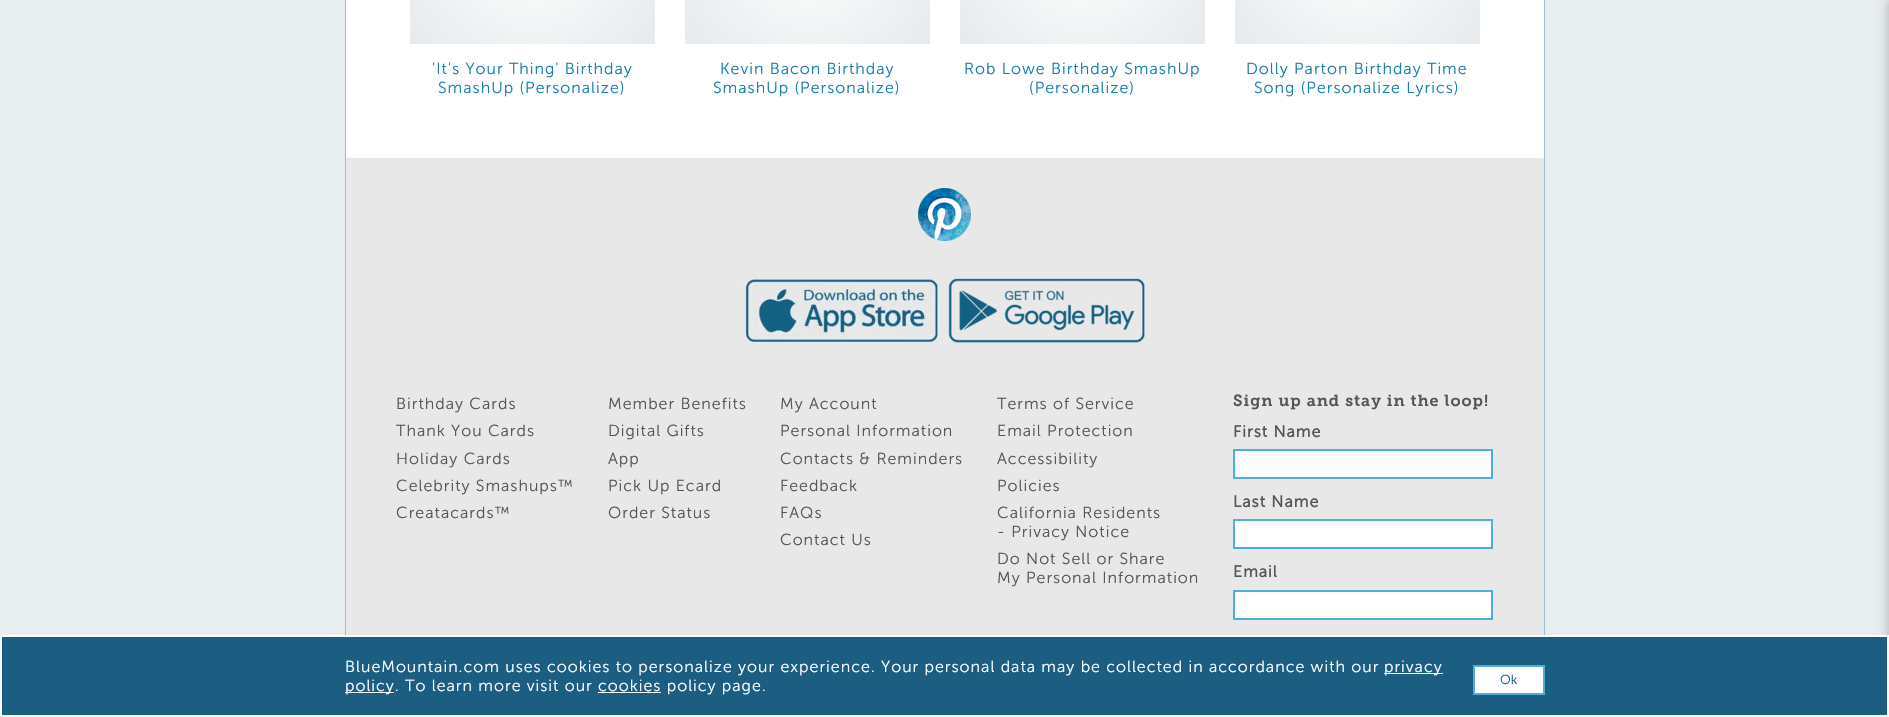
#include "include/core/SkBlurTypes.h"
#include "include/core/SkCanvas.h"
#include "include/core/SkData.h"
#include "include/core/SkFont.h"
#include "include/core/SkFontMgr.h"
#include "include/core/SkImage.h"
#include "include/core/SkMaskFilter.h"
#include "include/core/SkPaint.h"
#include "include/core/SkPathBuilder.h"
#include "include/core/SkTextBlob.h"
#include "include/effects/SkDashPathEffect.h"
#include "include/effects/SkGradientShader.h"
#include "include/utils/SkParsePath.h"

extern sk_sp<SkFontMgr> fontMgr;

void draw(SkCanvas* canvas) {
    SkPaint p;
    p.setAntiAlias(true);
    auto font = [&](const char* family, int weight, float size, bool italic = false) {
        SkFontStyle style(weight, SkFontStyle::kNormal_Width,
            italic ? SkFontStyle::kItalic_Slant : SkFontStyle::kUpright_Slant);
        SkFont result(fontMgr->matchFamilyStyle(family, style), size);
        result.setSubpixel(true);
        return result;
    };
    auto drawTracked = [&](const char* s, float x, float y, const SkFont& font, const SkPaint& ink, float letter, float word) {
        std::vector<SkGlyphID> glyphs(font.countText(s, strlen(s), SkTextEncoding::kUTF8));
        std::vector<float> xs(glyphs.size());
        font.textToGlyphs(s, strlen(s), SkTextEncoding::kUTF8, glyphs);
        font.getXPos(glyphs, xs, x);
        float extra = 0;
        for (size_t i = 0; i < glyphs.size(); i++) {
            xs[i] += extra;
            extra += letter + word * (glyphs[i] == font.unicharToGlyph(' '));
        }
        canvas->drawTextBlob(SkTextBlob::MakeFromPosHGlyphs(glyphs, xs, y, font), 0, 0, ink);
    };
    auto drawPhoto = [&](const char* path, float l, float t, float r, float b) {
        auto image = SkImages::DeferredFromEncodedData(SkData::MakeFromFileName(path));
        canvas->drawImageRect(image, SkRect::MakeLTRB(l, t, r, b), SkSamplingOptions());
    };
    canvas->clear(0xFFE8EDF0);
    {
        const struct { float l, t, r, b; SkColor color; } items[] = {
            {346, 0, 1544, 158, 0xFFFFFFFF},
            {1544, 0, 1545, 635, 0xFF95C5D1},
            {345, 0, 346, 635, 0xFF95C5D1},
        };
        for (auto [l, t, r, b, color] : items) {
            p.setColor(color);
            canvas->drawRect(SkRect::MakeLTRB(l, t, r, b), p);
        }
    }
    {
        const SkColor colors[] = {0xFFFFFFFF, 0xFFDEE4E7};
        const float stops[] = {0, 1};
        p.setShader(SkGradientShader::MakeRadial({533, -53}, 200, colors, stops, 2, SkTileMode::kClamp));
        p.setAlpha(255);
    }
    canvas->drawRect(SkRect::MakeLTRB(410, 0, 655, 44), p);
    auto font1 = font("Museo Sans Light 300", 300, 16);
    p.setShader(nullptr);
    p.setColor(0xFF157EAE);
    drawTracked("'It's Your Thing' Birthday", 432, 74, font1, p, 1, 0);
    drawTracked("SmashUp (Personalize)", 438, 93, font1, p, 1, 0);
    {
        const SkColor colors[] = {0xFFFFFFFF, 0xFFDEE4E7};
        const float stops[] = {0, 1};
        p.setShader(SkGradientShader::MakeRadial({808, -53}, 200, colors, stops, 2, SkTileMode::kClamp));
        p.setAlpha(255);
    }
    canvas->drawRect(SkRect::MakeLTRB(685, 0, 930, 44), p);
    p.setShader(nullptr);
    p.setColor(0xFF157EAE);
    drawTracked("Kevin Bacon Birthday", 720, 74, font1, p, 1, 0);
    drawTracked("SmashUp (Personalize)", 713, 93, font1, p, 1, 0);
    {
        const SkColor colors[] = {0xFFFFFFFF, 0xFFDEE4E7};
        const float stops[] = {0, 1};
        p.setShader(SkGradientShader::MakeRadial({1083, -53}, 200, colors, stops, 2, SkTileMode::kClamp));
        p.setAlpha(255);
    }
    canvas->drawRect(SkRect::MakeLTRB(960, 0, 1205, 44), p);
    p.setShader(nullptr);
    p.setColor(0xFF157EAE);
    drawTracked("Rob Lowe Birthday SmashUp", 964, 74, font1, p, 1, 0);
    drawTracked("(Personalize)", 1029, 93, font1, p, 1, 0);
    {
        const SkColor colors[] = {0xFFFFFFFF, 0xFFDEE4E7};
        const float stops[] = {0, 1};
        p.setShader(SkGradientShader::MakeRadial({1358, -53}, 200, colors, stops, 2, SkTileMode::kClamp));
        p.setAlpha(255);
    }
    canvas->drawRect(SkRect::MakeLTRB(1235, 0, 1480, 44), p);
    p.setShader(nullptr);
    p.setColor(0xFF157EAE);
    drawTracked("Dolly Parton Birthday Time", 1246, 74, font1, p, 1, 0);
    drawTracked("Song (Personalize Lyrics)", 1254, 93, font1, p, 1, 0);
    p.setColor(0xFFE8E8E8);
    canvas->drawRect(SkRect::MakeLTRB(346, 158, 1544, 635), p);
    drawPhoto("media/1.png", 918, 188, 971, 241);
    drawPhoto("media/2.png", 742, 278, 942, 343);
    drawPhoto("media/3.png", 948, 278, 1146, 343);
    p.setColor(0xFF555555);
    {
        const struct { const char* s; float x, y; } items[] = {
            {"Birthday Cards", 396, 409},
            {"Thank You Cards", 396, 436},
            {"Holiday Cards", 396, 464},
            {"Celebrity Smashups™", 396, 491},
            {"Creatacards™", 396, 518},
            {"Member Benefits", 608, 409},
            {"Digital Gifts", 608, 436},
            {"App", 608, 464},
            {"Pick Up Ecard", 608, 491},
            {"Order Status", 608, 518},
            {"My Account", 780, 409},
            {"Personal Information", 780, 436},
            {"Contacts & Reminders", 780, 464},
            {"Feedback", 780, 491},
            {"FAQs", 780, 518},
            {"Contact Us", 780, 545},
            {"Terms of Service", 997, 409},
            {"Email Protection", 997, 436},
            {"Accessibility", 997, 464},
            {"Policies", 997, 491},
            {"California Residents", 997, 518},
            {"- Privacy Notice", 997, 537},
            {"Do Not Sell or Share", 997, 564},
            {"My Personal Information", 997, 583},
        };
        for (auto [s, x, y] : items) {
            drawTracked(s, x, y, font1, p, 1, 0);
        }
    }
    auto font2 = font("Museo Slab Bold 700", 600, 16);
    drawTracked("Sign up and stay in the loop!", 1233, 406, font2, p, 1, 0);
    auto font3 = font("Museo Sans Light 300", 700, 16);
    drawTracked("First Name", 1233, 437, font3, p, 1, 0);
    p.setColor(0xFFFFFFFF);
    canvas->drawRect(SkRect::MakeLTRB(1234, 450, 1492, 478), p);
    p.setStyle(SkPaint::kStroke_Style);
    p.setStrokeWidth(2);
    p.setColor(0xFF4FAFD6);
    canvas->drawRect(SkRect::MakeLTRB(1234, 450, 1492, 478), p);
    p.setStyle(SkPaint::kFill_Style);
    p.setColor(0xFF555555);
    drawTracked("Last Name", 1233, 507, font3, p, 1, 0);
    p.setColor(0xFFFFFFFF);
    canvas->drawRect(SkRect::MakeLTRB(1234, 520, 1492, 548), p);
    p.setStyle(SkPaint::kStroke_Style);
    p.setColor(0xFF4FAFD6);
    canvas->drawRect(SkRect::MakeLTRB(1234, 520, 1492, 548), p);
    p.setStyle(SkPaint::kFill_Style);
    p.setColor(0xFF555555);
    drawTracked("Email", 1233, 577, font3, p, 1, 0);
    p.setColor(0xFFFFFFFF);
    canvas->drawRect(SkRect::MakeLTRB(1234, 591, 1492, 619), p);
    p.setStyle(SkPaint::kStroke_Style);
    p.setColor(0xFF4FAFD6);
    canvas->drawRect(SkRect::MakeLTRB(1234, 591, 1492, 619), p);
    p.setStyle(SkPaint::kFill_Style);
    p.setColor(0x33000000);
    p.setMaskFilter(SkMaskFilter::MakeBlur(kNormal_SkBlurStyle, 5));
    canvas->drawRect(SkRect::MakeLTRB(1887, 0, 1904, 717), p);
    p.setMaskFilter(nullptr);
    p.setColor(0xFF1C5D82);
    canvas->drawRect(SkRect::MakeLTRB(1, 636, 1888, 716), p);
    p.setStyle(SkPaint::kStroke_Style);
    p.setColor(0xFFFFFFFF);
    canvas->drawRect(SkRect::MakeLTRB(1, 636, 1888, 716), p);
    p.setStyle(SkPaint::kFill_Style);
    drawTracked("BlueMountain.com uses cookies to personalize your experience. Your personal data may be collected in accordance with our", 345, 672, font1, p, 1, 0);
    canvas->drawRect(SkRect::MakeLTRB(1384, 673, 1443, 674), p);
    drawTracked("privacy", 1384, 672, font1, p, 1, 0);
    canvas->drawRect(SkRect::MakeLTRB(345, 692, 394, 693), p);
    drawTracked("policy. To learn more visit our cookies policy page.", 345, 691, font1, p, 1, 0);
    canvas->drawRect(SkRect::MakeLTRB(598, 692, 661, 693), p);
    canvas->drawRect(SkRect::MakeLTRB(1474, 666, 1544, 694), p);
    p.setStyle(SkPaint::kStroke_Style);
    p.setColor(0xFF4EAED6);
    canvas->drawRect(SkRect::MakeLTRB(1474, 666, 1544, 694), p);
    auto font4 = font("Museo Sans Light 300", 300, 13);
    p.setStyle(SkPaint::kFill_Style);
    p.setColor(0xFF115F83);
    canvas->drawString("Ok", 1500, 684, font4, p);
}
